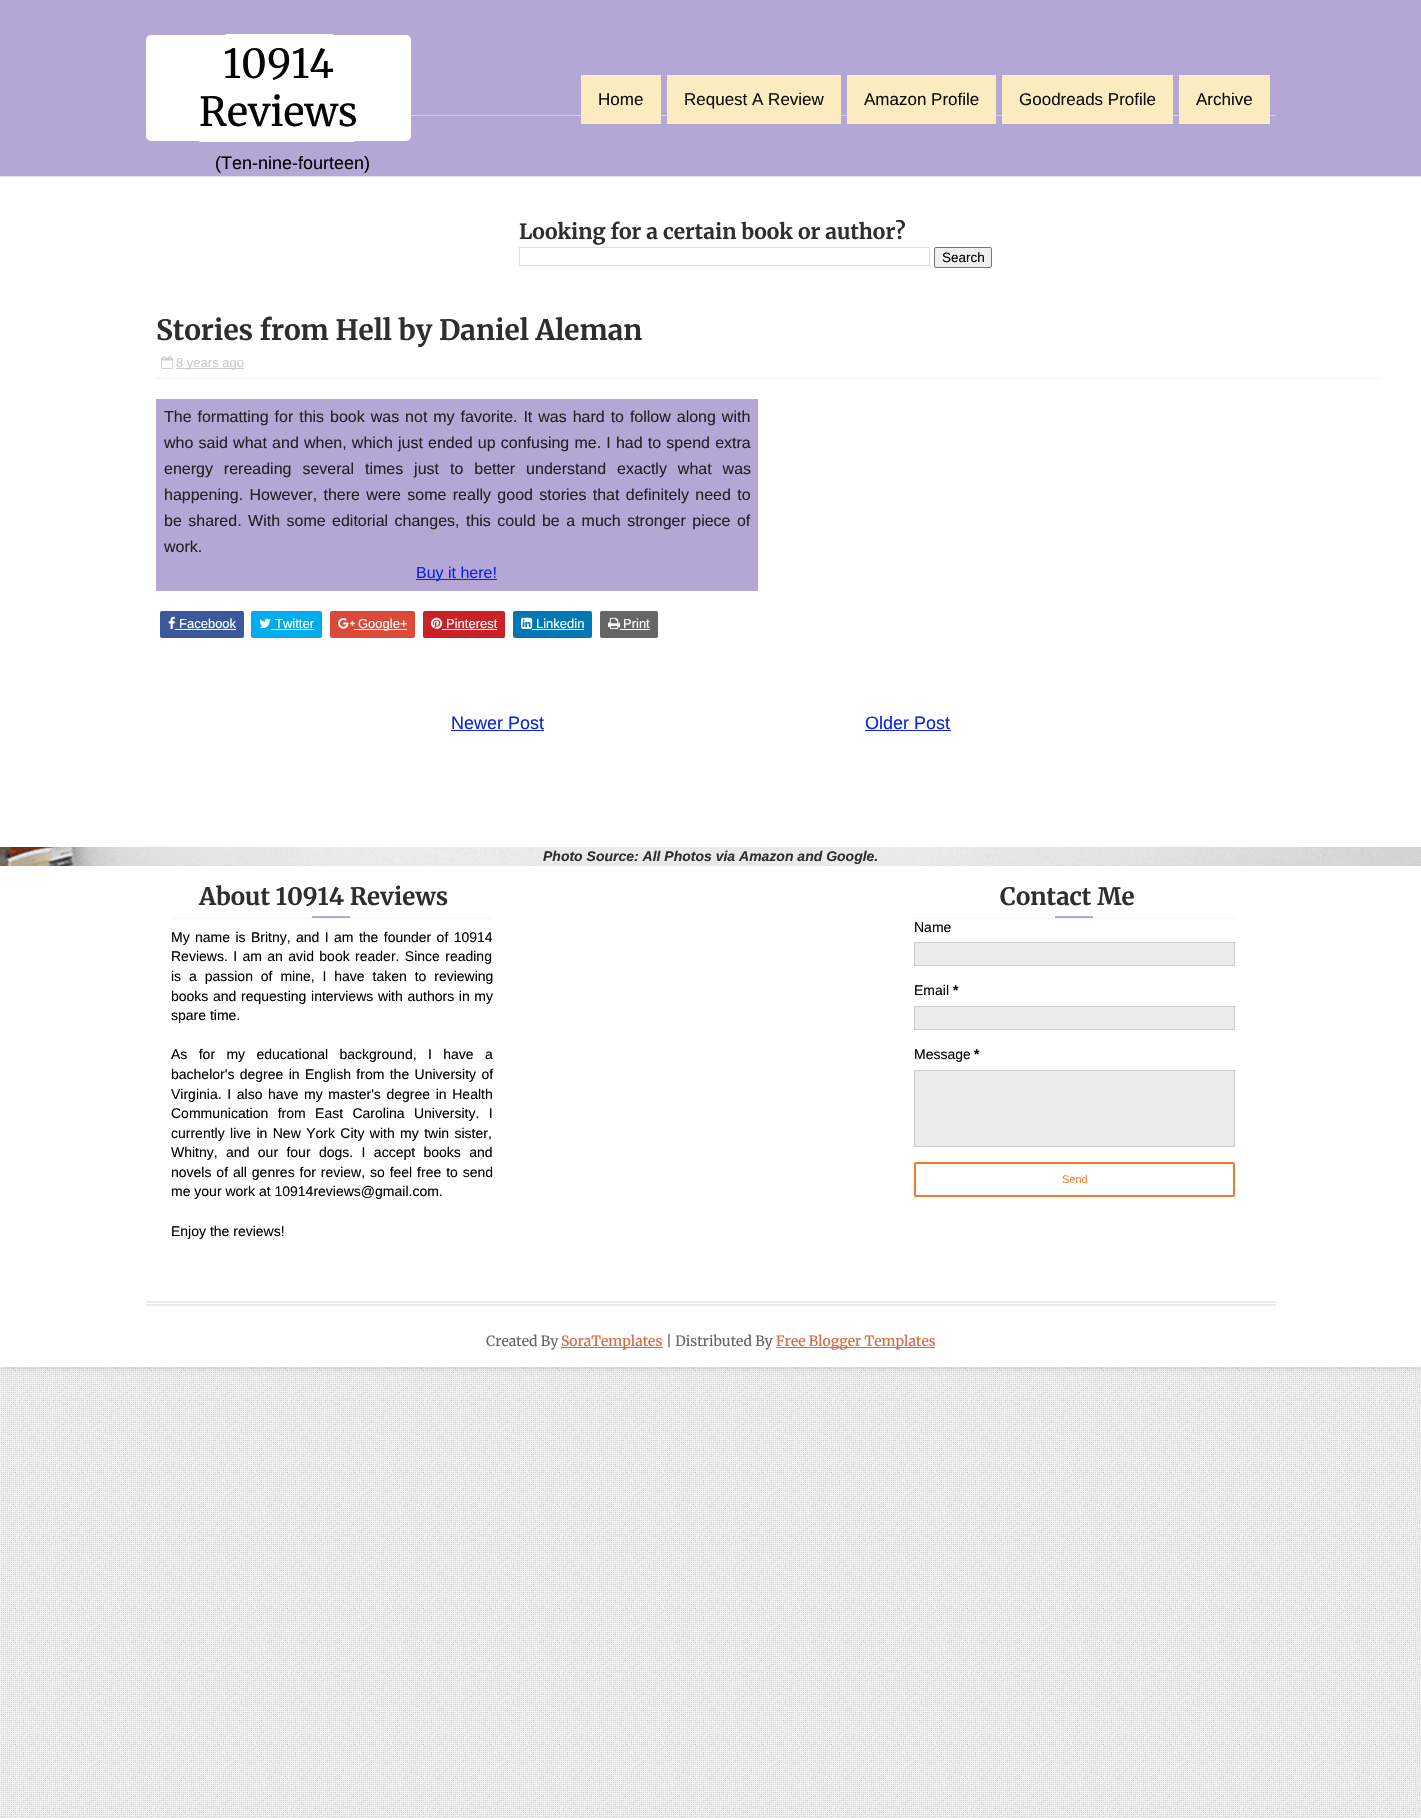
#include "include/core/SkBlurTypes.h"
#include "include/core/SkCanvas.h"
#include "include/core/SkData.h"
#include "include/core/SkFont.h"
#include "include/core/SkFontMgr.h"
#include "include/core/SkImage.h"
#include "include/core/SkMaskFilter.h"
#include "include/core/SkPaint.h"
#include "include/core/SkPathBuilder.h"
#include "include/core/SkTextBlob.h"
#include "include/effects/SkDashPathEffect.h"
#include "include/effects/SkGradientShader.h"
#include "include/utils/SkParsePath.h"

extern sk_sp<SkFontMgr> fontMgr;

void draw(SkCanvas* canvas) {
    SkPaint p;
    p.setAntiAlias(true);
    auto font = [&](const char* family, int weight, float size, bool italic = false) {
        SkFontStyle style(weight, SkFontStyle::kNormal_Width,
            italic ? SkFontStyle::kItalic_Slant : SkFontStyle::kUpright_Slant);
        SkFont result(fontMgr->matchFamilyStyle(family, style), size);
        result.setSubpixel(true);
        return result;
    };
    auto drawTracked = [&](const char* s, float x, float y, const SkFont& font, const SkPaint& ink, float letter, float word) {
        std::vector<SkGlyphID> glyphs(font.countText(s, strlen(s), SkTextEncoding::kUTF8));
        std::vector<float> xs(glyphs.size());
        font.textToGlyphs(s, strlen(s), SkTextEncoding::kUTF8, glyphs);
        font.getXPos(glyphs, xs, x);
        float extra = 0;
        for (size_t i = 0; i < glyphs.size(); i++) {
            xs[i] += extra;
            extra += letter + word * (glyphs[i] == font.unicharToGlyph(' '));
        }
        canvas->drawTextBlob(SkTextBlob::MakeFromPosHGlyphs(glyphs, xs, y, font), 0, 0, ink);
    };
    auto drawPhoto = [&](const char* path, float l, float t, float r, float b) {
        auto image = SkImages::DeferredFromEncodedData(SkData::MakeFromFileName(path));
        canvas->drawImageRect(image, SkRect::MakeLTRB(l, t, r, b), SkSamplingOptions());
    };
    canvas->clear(0xFFFFFFFF);
    drawPhoto("media/1.png", 0, 1367, 1421, 1818);
    p.setColor(0x33000000);
    p.setMaskFilter(SkMaskFilter::MakeBlur(kNormal_SkBlurStyle, 2.5f));
    canvas->drawRect(SkRect::MakeLTRB(0, 0, 1421, 1367), p);
    p.setMaskFilter(nullptr);
    {
        const struct { float l, t, r, b; SkColor color; } items[] = {
            {0, 177, 1421, 1367, 0xFFFFFFFF},
            {0, 0, 1421, 176, 0xFFB4A7D6},
            {0, 176, 1421, 177, 0xFFE2E2E2},
            {411, 115, 1276, 116, 0xFFD2CAE6},
        };
        for (auto [l, t, r, b, color] : items) {
            p.setColor(color);
            canvas->drawRect(SkRect::MakeLTRB(l, t, r, b), p);
        }
    }
    p.setColor(0xFFFFFFFF);
    canvas->drawRoundRect(SkRect::MakeLTRB(146, 35, 411, 141), 5, 5, p);
    canvas->drawPath(SkPathBuilder().moveTo(228, 34).lineTo(333, 34).lineTo(333, 94).lineTo(228, 94).cubicTo(225, 94, 223, 92, 223, 89).lineTo(223, 39).cubicTo(223, 36, 225, 34, 228, 34).close().detach(), p);
    auto font1 = font("Merriweather", 400, 40);
    p.setColor(0xFF040404);
    canvas->drawString("10914", 223, 78, font1, p);
    p.setColor(0xFFFFFFFF);
    canvas->drawPath(SkPathBuilder().moveTo(199, 82).lineTo(352, 82).cubicTo(355, 82, 357, 84, 357, 87).lineTo(357, 137).cubicTo(357, 140, 355, 142, 352, 142).lineTo(199, 142).close().detach(), p);
    p.setColor(0xFF040404);
    canvas->drawString("Reviews", 199, 126, font1, p);
    auto font2 = font("Liberation Sans", 400, 18);
    canvas->drawString("(Ten-nine-fourteen)", 215, 169, font2, p);
    p.setColor(0xF7FFECBF);
    canvas->drawRect(SkRect::MakeLTRB(581, 75, 661, 124), p);
    auto font3 = font("Liberation Sans", 400, 17);
    p.setColor(0xFF0F0F0E);
    canvas->drawString("Home", 598, 105, font3, p);
    p.setColor(0xF7FFECBF);
    canvas->drawRect(SkRect::MakeLTRB(667, 75, 841, 124), p);
    p.setColor(0xFF0F0F0E);
    canvas->drawString("Request A Review", 684, 105, font3, p);
    p.setColor(0xF7FFECBF);
    canvas->drawRect(SkRect::MakeLTRB(847, 75, 996, 124), p);
    p.setColor(0xFF0F0F0E);
    canvas->drawString("Amazon Profile", 864, 105, font3, p);
    p.setColor(0xF7FFECBF);
    canvas->drawRect(SkRect::MakeLTRB(1002, 75, 1173, 124), p);
    p.setColor(0xFF0F0F0E);
    canvas->drawString("Goodreads Profile", 1019, 105, font3, p);
    p.setColor(0xF7FFECBF);
    canvas->drawRect(SkRect::MakeLTRB(1179, 75, 1270, 124), p);
    p.setColor(0xFF0F0F0E);
    canvas->drawString("Archive", 1196, 105, font3, p);
    auto font4 = font("Merriweather", 700, 21);
    p.setColor(0xFF2E2E2E);
    canvas->drawString("Looking for a certain book or author?", 519, 239, font4, p);
    p.setStyle(SkPaint::kStroke_Style);
    p.setStrokeWidth(1);
    p.setColor(0xFFDDDDDD);
    canvas->drawRect(SkRect::MakeLTRB(519.5f, 247.5f, 929.5f, 265.5f), p);
    p.setStyle(SkPaint::kFill_Style);
    p.setColor(0xFFEFEFEF);
    canvas->drawRoundRect(SkRect::MakeLTRB(934.5f, 247.5f, 991.5f, 267.5f), 1.5f, 1.5f, p);
    p.setStyle(SkPaint::kStroke_Style);
    p.setColor(0xFF767676);
    canvas->drawRoundRect(SkRect::MakeLTRB(934.5f, 247.5f, 991.5f, 267.5f), 1.5f, 1.5f, p);
    auto font5 = font("Liberation Sans", 400, 13.5f);
    p.setStyle(SkPaint::kFill_Style);
    p.setColor(0xFF040404);
    canvas->drawString("Search", 942, 262, font5, p);
    auto font6 = font("Merriweather", 700, 28);
    p.setColor(0xFF2E2E2E);
    canvas->drawString("Stories from Hell by Daniel Aleman", 156, 340, font6, p);
    p.setColor(0xFFF2F2F2);
    canvas->drawRect(SkRect::MakeLTRB(156, 378, 1381, 379), p);
    drawPhoto("media/2.png", 161, 355, 173, 369);
    p.setColor(0xFFCBCBCB);
    canvas->drawRect(SkRect::MakeLTRB(176, 368, 244, 369), p);
    auto font7 = font("Liberation Sans", 400, 13);
    canvas->drawString("8 years ago", 176, 367, font7, p);
    p.setColor(0xFFB4A7D6);
    canvas->drawRect(SkRect::MakeLTRB(156, 399, 758, 591), p);
    auto font8 = font("Liberation Sans", 400, 16);
    p.setColor(0xFF222222);
    drawTracked("The formatting for this book was not my favorite. It was hard to follow along with", 164, 422, font8, p, 0, 1.5f);
    drawTracked("who said what and when, which just ended up confusing me. I had to spend extra", 164, 448, font8, p, 0, 0.75f);
    drawTracked("energy rereading several times just to better understand exactly what was", 164, 474, font8, p, 0, 6.5f);
    drawTracked("happening. However, there were some really good stories that definitely need to", 164, 500, font8, p, 0, 1.9f);
    drawTracked("be shared. With some editorial changes, this could be a much stronger piece of", 164, 526, font8, p, 0, 2);
    canvas->drawString("work.", 164, 552, font8, p);
    p.setColor(0xFF0E24E3);
    canvas->drawRect(SkRect::MakeLTRB(416, 579, 497, 580), p);
    canvas->drawString("Buy it here!", 416, 578, font8, p);
    p.setColor(0xFF3B5998);
    canvas->drawRoundRect(SkRect::MakeLTRB(160, 611, 244, 638), 2, 2, p);
    drawPhoto("media/3.png", 168, 616, 175, 629);
    p.setColor(0xFFFFFFFF);
    canvas->drawString("Facebook", 179, 628, font7, p);
    canvas->drawRect(SkRect::MakeLTRB(175, 629, 236, 630), p);
    p.setColor(0xFF00ACEE);
    canvas->drawRoundRect(SkRect::MakeLTRB(251, 611, 322, 638), 2, 2, p);
    drawPhoto("media/4.png", 259, 618, 271, 628);
    p.setColor(0xFFFFFFFF);
    canvas->drawString("Twitter", 275, 628, font7, p);
    canvas->drawRect(SkRect::MakeLTRB(271, 629, 314, 630), p);
    p.setColor(0xFFDB4A39);
    canvas->drawRoundRect(SkRect::MakeLTRB(330, 611, 415, 638), 2, 2, p);
    drawPhoto("media/5.png", 338, 618, 355, 629);
    p.setColor(0xFFFFFFFF);
    canvas->drawRect(SkRect::MakeLTRB(354, 629, 407, 630), p);
    canvas->drawString("Google+", 358, 628, font7, p);
    p.setColor(0xFFCA2127);
    canvas->drawRoundRect(SkRect::MakeLTRB(423, 611, 505, 638), 2, 2, p);
    drawPhoto("media/6.png", 431, 617, 443, 629);
    p.setColor(0xFFFFFFFF);
    canvas->drawString("Pinterest", 446, 628, font7, p);
    canvas->drawRect(SkRect::MakeLTRB(442, 629, 497, 630), p);
    p.setColor(0xFF0077B5);
    canvas->drawRoundRect(SkRect::MakeLTRB(513, 611, 592, 638), 2, 2, p);
    drawPhoto("media/7.png", 521, 617, 533, 629);
    p.setColor(0xFFFFFFFF);
    canvas->drawString("Linkedin", 536, 628, font7, p);
    canvas->drawRect(SkRect::MakeLTRB(532, 629, 584, 630), p);
    p.setColor(0xFF666666);
    canvas->drawRoundRect(SkRect::MakeLTRB(600, 611, 658, 638), 2, 2, p);
    drawPhoto("media/8.png", 608, 617, 621, 629);
    p.setColor(0xFFFFFFFF);
    canvas->drawString("Print", 623, 628, font7, p);
    canvas->drawRect(SkRect::MakeLTRB(620, 629, 650, 630), p);
    p.setColor(0xFF0E24E3);
    canvas->drawString("Newer Post", 451, 729, font2, p);
    canvas->drawRect(SkRect::MakeLTRB(451, 730, 544, 731), p);
    canvas->drawString("Older Post", 865, 729, font2, p);
    canvas->drawRect(SkRect::MakeLTRB(865, 730, 951, 731), p);
    drawPhoto("media/9.png", 0, 847, 1421, 866);
    auto font9 = font("Liberation Sans", 700, 14, true);
    p.setColor(0xFF2E2E2E);
    canvas->drawString("Photo Source: All Photos via Amazon and Google.", 543, 861, font9, p);
    {
        const struct { float l, t, r, b; SkColor color; } items[] = {
            {146, 1301, 1276, 1303, 0xFFEAEAEA},
            {146, 1304, 1276, 1306, 0xFFEAEAEA},
            {171, 918, 492, 919, 0xFFF5F5F5},
        };
        for (auto [l, t, r, b, color] : items) {
            p.setColor(color);
            canvas->drawRect(SkRect::MakeLTRB(l, t, r, b), p);
        }
    }
    auto font10 = font("Merriweather", 700, 24);
    p.setColor(0xFF2E2E2E);
    canvas->drawString("About 10914 Reviews", 199, 905, font10, p);
    p.setColor(0xFFB4A7D6);
    canvas->drawRect(SkRect::MakeLTRB(312, 916, 350, 918), p);
    auto font11 = font("Liberation Sans", 400, 14);
    p.setColor(0xFF040404);
    drawTracked("My name is Britny, and I am the founder of 10914", 171, 942, font11, p, 0, 1.5f);
    drawTracked("Reviews. I am an avid book reader. Since reading", 171, 961, font11, p, 0, 1.5f);
    drawTracked("is a passion of mine, I have taken to reviewing", 171, 981, font11, p, 0, 4);
    drawTracked("books and requesting interviews with authors in my", 171, 1001, font11, p, 0, 0.75f);
    canvas->drawString("spare time.", 171, 1020, font11, p);
    drawTracked("As for my educational background, I have a", 171, 1059, font11, p, 0, 7.5f);
    drawTracked("bachelor's degree in English from the University of", 171, 1079, font11, p, 0, 1.5f);
    drawTracked("Virginia. I also have my master's degree in Health", 171, 1099, font11, p, 0, 1.75f);
    drawTracked("Communication from East Carolina University. I", 171, 1118, font11, p, 0, 5.5f);
    drawTracked("currently live in New York City with my twin sister,", 171, 1138, font11, p, 0, 1.5f);
    drawTracked("Whitny, and our four dogs. I accept books and", 171, 1157, font11, p, 0, 4.5f);
    drawTracked("novels of all genres for review, so feel free to send", 171, 1177, font11, p, 0, 1);
    canvas->drawString("me your work at 10914reviews@gmail.com.", 171, 1196, font11, p);
    canvas->drawString("Enjoy the reviews!", 171, 1236, font11, p);
    p.setColor(0xFFF5F5F5);
    canvas->drawRect(SkRect::MakeLTRB(914, 918, 1235, 919), p);
    p.setColor(0xFF2E2E2E);
    canvas->drawString("Contact Me", 1000, 905, font10, p);
    p.setColor(0xFFB4A7D6);
    canvas->drawRect(SkRect::MakeLTRB(1055, 916, 1093, 918), p);
    p.setColor(0xFF040404);
    canvas->drawString("Name", 914, 932, font11, p);
    p.setColor(0xFFEBEBEB);
    canvas->drawRect(SkRect::MakeLTRB(914.5f, 942.5f, 1234.5f, 965.5f), p);
    p.setStyle(SkPaint::kStroke_Style);
    p.setColor(0xFFCCCCCC);
    canvas->drawRect(SkRect::MakeLTRB(914.5f, 942.5f, 1234.5f, 965.5f), p);
    p.setStyle(SkPaint::kFill_Style);
    p.setColor(0xFF040404);
    canvas->drawString("Email", 914, 995, font11, p);
    auto font12 = font("Liberation Sans", 700, 14);
    canvas->drawString("*", 953, 995, font12, p);
    p.setColor(0xFFEBEBEB);
    canvas->drawRect(SkRect::MakeLTRB(914.5f, 1006.5f, 1234.5f, 1029.5f), p);
    p.setStyle(SkPaint::kStroke_Style);
    p.setColor(0xFFCCCCCC);
    canvas->drawRect(SkRect::MakeLTRB(914.5f, 1006.5f, 1234.5f, 1029.5f), p);
    p.setStyle(SkPaint::kFill_Style);
    p.setColor(0xFF040404);
    canvas->drawString("Message", 914, 1059, font11, p);
    canvas->drawString("*", 974, 1059, font12, p);
    p.setColor(0xFFEBEBEB);
    canvas->drawRect(SkRect::MakeLTRB(914.5f, 1070.5f, 1234.5f, 1146.5f), p);
    p.setStyle(SkPaint::kStroke_Style);
    p.setColor(0xFFCCCCCC);
    canvas->drawRect(SkRect::MakeLTRB(914.5f, 1070.5f, 1234.5f, 1146.5f), p);
    p.setStrokeWidth(2);
    p.setColor(0xFFF07C29);
    canvas->drawRoundRect(SkRect::MakeLTRB(915, 1163, 1234, 1196), 1, 1, p);
    auto font13 = font("Liberation Sans", 400, 11);
    p.setStyle(SkPaint::kFill_Style);
    canvas->drawString("Send", 1062, 1183, font13, p);
    auto font14 = font("Merriweather", 400, 14);
    p.setColor(0xFF666666);
    canvas->drawString("Created By", 486, 1346, font14, p);
    p.setColor(0xFFD86843);
    canvas->drawRect(SkRect::MakeLTRB(561, 1347, 663, 1348), p);
    canvas->drawString("SoraTemplates", 561, 1346, font14, p);
    p.setColor(0xFF666666);
    canvas->drawString("| Distributed By", 666, 1346, font14, p);
    p.setColor(0xFFD86843);
    canvas->drawRect(SkRect::MakeLTRB(776, 1347, 935, 1348), p);
    canvas->drawString("Free Blogger Templates", 776, 1346, font14, p);
}
